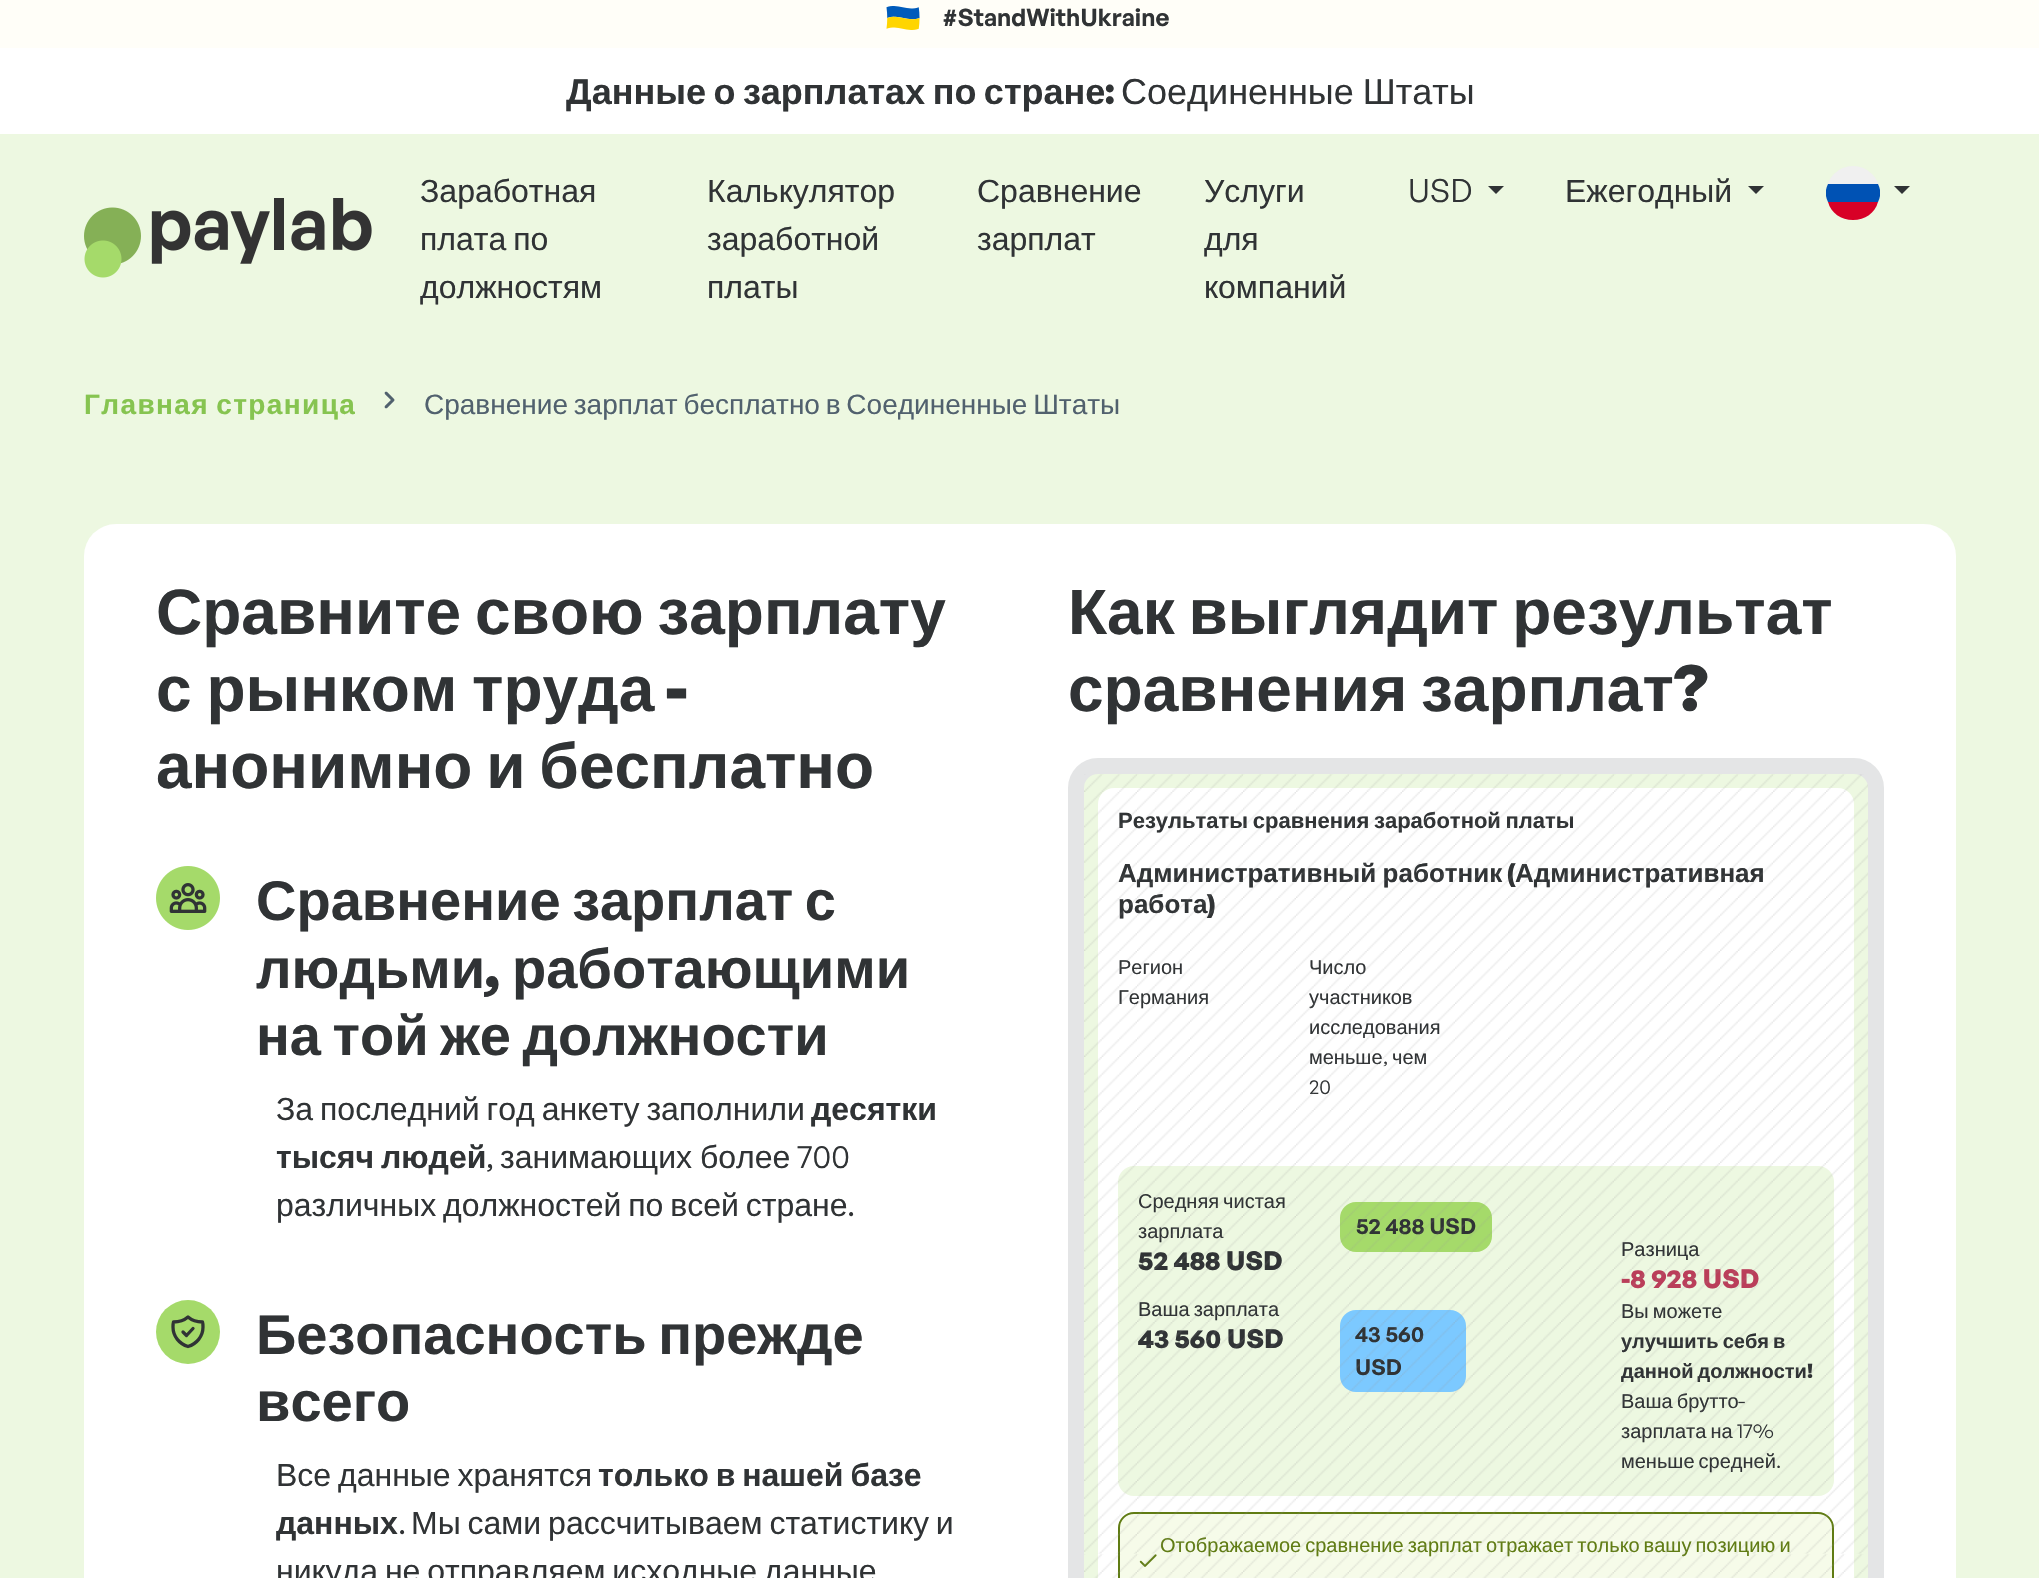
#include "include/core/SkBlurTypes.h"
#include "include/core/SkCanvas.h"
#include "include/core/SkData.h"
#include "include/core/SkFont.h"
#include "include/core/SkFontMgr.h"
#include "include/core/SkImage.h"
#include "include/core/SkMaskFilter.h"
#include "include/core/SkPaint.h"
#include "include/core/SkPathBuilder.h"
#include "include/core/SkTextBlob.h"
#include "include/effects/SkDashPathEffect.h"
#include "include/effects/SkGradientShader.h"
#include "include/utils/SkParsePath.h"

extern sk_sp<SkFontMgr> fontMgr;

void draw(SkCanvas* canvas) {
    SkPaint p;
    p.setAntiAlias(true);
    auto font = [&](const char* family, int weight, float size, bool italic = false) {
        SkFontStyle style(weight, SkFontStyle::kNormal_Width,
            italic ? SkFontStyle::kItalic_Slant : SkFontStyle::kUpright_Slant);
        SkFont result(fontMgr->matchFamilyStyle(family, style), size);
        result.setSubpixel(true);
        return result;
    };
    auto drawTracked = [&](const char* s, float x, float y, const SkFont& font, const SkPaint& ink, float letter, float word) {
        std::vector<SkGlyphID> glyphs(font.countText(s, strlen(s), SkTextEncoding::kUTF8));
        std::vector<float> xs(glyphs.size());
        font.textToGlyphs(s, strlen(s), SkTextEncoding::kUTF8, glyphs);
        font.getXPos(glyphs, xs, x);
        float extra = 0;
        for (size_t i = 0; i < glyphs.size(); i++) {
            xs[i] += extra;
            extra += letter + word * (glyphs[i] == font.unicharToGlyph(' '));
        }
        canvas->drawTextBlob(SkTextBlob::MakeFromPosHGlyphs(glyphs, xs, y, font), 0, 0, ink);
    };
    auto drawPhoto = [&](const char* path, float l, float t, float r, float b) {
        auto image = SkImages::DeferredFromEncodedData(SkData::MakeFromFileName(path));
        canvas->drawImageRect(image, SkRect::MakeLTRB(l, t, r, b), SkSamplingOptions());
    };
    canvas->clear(0xFFEDF8E1);
    p.setColor(0xFFFFFEF8);
    canvas->drawRect(SkRect::MakeLTRB(0, 0, 2039, 48), p);
    drawPhoto("media/1.png", 886, 6, 920, 30);
    auto font1 = font("General Sans", 600, 24);
    p.setColor(0xFF303335);
    canvas->drawString("#StandWithUkraine", 942, 26, font1, p);
    p.setColor(0xFFFFFFFF);
    canvas->drawRect(SkRect::MakeLTRB(0, 48, 2039, 134), p);
    auto font2 = font("Liberation Sans", 700, 36);
    p.setColor(0xFF303335);
    drawTracked("Данные о зарплатах по стране", 566, 104, font2, p, 0, -2.5f);
    auto font3 = font("General Sans", 700, 36);
    canvas->drawString(":", 1105, 104, font3, p);
    auto font4 = font("Liberation Sans", 400, 36);
    drawTracked("Соединенные Штаты", 1121, 104, font4, p, 0, -1);
    drawPhoto("media/2.png", 84, 198, 372, 278);
    auto font5 = font("Liberation Sans", 400, 32);
    canvas->drawString("Заработная", 420, 202, font5, p);
    drawTracked("плата по", 420, 250, font5, p, 0, -2);
    {
        const struct { const char* s; float x, y; } items[] = {
            {"должностям", 420, 298},
            {"Калькулятор", 707, 202},
            {"заработной", 707, 250},
            {"платы", 707, 298},
            {"Сравнение", 977, 202},
            {"зарплат", 977, 250},
            {"Услуги", 1204, 202},
            {"для", 1204, 250},
            {"компаний", 1204, 298},
        };
        for (auto [s, x, y] : items) {
            canvas->drawString(s, x, y, font5, p);
        }
    }
    auto font6 = font("General Sans", 400, 32);
    canvas->drawString("USD", 1408, 202, font6, p);
    canvas->drawPath(SkPathBuilder().moveTo(1488, 186).lineTo(1504, 186).lineTo(1496, 194).close().detach(), p);
    canvas->drawString("Ежегодный", 1565, 202, font5, p);
    canvas->drawPath(SkPathBuilder().moveTo(1748, 186).lineTo(1764, 186).lineTo(1756, 194).close().detach(), p);
    p.setColor(0xFFF0F0F0);
    canvas->drawCircle(1853, 193, 27, p);
    canvas->save();
    canvas->clipRect(SkRect::MakeLTRB(1826, 166, 1880, 220));
    p.setColor(0xFF0052B4);
    canvas->drawPath(SkPathBuilder().moveTo(1878, 202).cubicTo(1881, 196, 1881, 190, 1878, 184).lineTo(1828, 184).cubicTo(1825, 190, 1825, 196, 1828, 202).lineTo(1853, 205).close().detach(), p);
    canvas->restore();
    p.setColor(0xFF303335);
    canvas->drawPath(SkPathBuilder().moveTo(1894, 186).lineTo(1910, 186).lineTo(1902, 194).close().detach(), p);
    p.setColor(0xFFD80027);
    canvas->drawPath(SkPathBuilder().moveTo(1853, 220).cubicTo(1865, 220, 1875, 213, 1878, 202).lineTo(1828, 202).cubicTo(1831, 213, 1841, 220, 1853, 220).close().detach(), p);
    auto font7 = font("Liberation Sans", 700, 28);
    p.setColor(0xFF86C450);
    drawTracked("Главная страница", 84, 414, font7, p, 1.4f, -2);
    drawPhoto("media/3.png", 384, 391, 395, 409);
    auto font8 = font("Liberation Sans", 400, 28);
    p.setColor(0xFF51616E);
    drawTracked("Сравнение зарплат бесплатно в Соединенные Штаты", 424, 414, font8, p, 0, -2);
    p.setColor(0xFFFFFFFF);
    canvas->drawRoundRect(SkRect::MakeLTRB(84, 524, 1956, 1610), 32, 32, p);
    auto font9 = font("Liberation Sans", 700, 64);
    p.setColor(0xFF303335);
    drawTracked("Сравните свою зарплату", 156, 634, font9, p, 0, -4);
    drawTracked("с рынком труда", 156, 711, font9, p, 0, -3);
    auto font10 = font("General Sans", 700, 64);
    canvas->drawString("-", 665, 711, font10, p);
    drawTracked("анонимно и бесплатно", 156, 788, font9, p, 0, -4);
    drawPhoto("media/4.png", 156, 866, 220, 930);
    auto font11 = font("Liberation Sans", 700, 56);
    drawTracked("Сравнение зарплат с", 256, 920, font11, p, 0, -4);
    canvas->drawString("людьми", 256, 988, font11, p);
    auto font12 = font("General Sans", 700, 56);
    canvas->drawString(",", 485, 988, font12, p);
    canvas->drawString("работающими", 512, 988, font11, p);
    drawTracked("на той же должности", 256, 1055, font11, p, 0, -4);
    drawTracked("За последний год анкету заполнили", 276, 1120, font5, p, 0, -2);
    auto font13 = font("Liberation Sans", 700, 32);
    canvas->drawString("десятки", 811, 1120, font13, p);
    drawTracked("тысяч людей", 276, 1168, font13, p, 0, -2);
    canvas->drawString(",", 486, 1168, font6, p);
    drawTracked("занимающих более", 500, 1168, font5, p, 0, -1);
    canvas->drawString("700", 797, 1168, font6, p);
    drawTracked("различных должностей по всей стране", 276, 1216, font5, p, 0, -2);
    canvas->drawString(".", 847, 1216, font6, p);
    p.setColor(0xFFA5DA6A);
    canvas->drawCircle(188, 1332, 32, p);
    p.setStyle(SkPaint::kStroke_Style);
    p.setStrokeWidth(3.3f);
    p.setStrokeCap(SkPaint::kRound_Cap);
    p.setStrokeJoin(SkPaint::kRound_Join);
    p.setColor(0xFF303335);
    canvas->drawPath(SkPathBuilder().moveTo(183, 1332).lineTo(186.5f, 1335.5f).lineTo(193, 1328.5f).moveTo(202.5f, 1322).cubicTo(197, 1322, 192, 1320.5f, 188, 1317).cubicTo(184, 1320.5f, 179, 1322, 173.5f, 1322).cubicTo(173, 1323.5f, 173, 1325.5f, 173, 1327).cubicTo(173, 1336.5f, 179.5f, 1344, 188, 1346.5f).cubicTo(196.5f, 1344, 203, 1336.5f, 203, 1327).cubicTo(203, 1325.5f, 203, 1323.5f, 202.5f, 1322).close().detach(), p);
    p.setStyle(SkPaint::kFill_Style);
    drawTracked("Безопасность прежде", 256, 1354, font11, p, 0, -4);
    canvas->drawString("всего", 256, 1421, font11, p);
    drawTracked("Все данные хранятся", 276, 1486, font5, p, 0, -2);
    drawTracked("только в нашей базе", 598, 1486, font13, p, 0, -2);
    canvas->drawString("данных", 276, 1534, font13, p);
    canvas->drawString(".", 398, 1534, font6, p);
    drawTracked("Мы сами рассчитываем статистику и", 411, 1534, font5, p, 0, -2);
    drawTracked("никуда не отправляем исходные данные", 276, 1582, font5, p, 0, -2);
    drawTracked("Как выглядит результат", 1068, 634, font9, p, 0, -4);
    drawTracked("сравнения зарплат", 1068, 711, font9, p, 0, -4);
    canvas->drawString("?", 1673, 711, font10, p);
    p.setColor(0xFFEDF8E1);
    canvas->drawRoundRect(SkRect::MakeLTRB(1076, 766, 1876, 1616), 22, 22, p);
    p.setStyle(SkPaint::kStroke_Style);
    p.setStrokeWidth(16);
    p.setStrokeCap(SkPaint::kButt_Cap);
    p.setStrokeJoin(SkPaint::kMiter_Join);
    p.setColor(0xFFE4E5E6);
    canvas->drawRoundRect(SkRect::MakeLTRB(1076, 766, 1876, 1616), 22, 22, p);
    p.setStyle(SkPaint::kFill_Style);
    p.setColor(0xFFFFFFFF);
    canvas->drawRoundRect(SkRect::MakeLTRB(1098, 788, 1854, 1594), 16, 16, p);
    auto font14 = font("Liberation Sans", 700, 22);
    p.setColor(0xFF303335);
    drawTracked("Результаты сравнения заработной платы", 1118, 828, font14, p, 0, -1.5f);
    auto font15 = font("Liberation Sans", 700, 26);
    drawTracked("Административный работник", 1118, 882, font15, p, 0, -1);
    auto font16 = font("General Sans", 700, 26);
    canvas->drawString("(", 1507, 882, font16, p);
    canvas->drawString("Административная", 1515, 882, font15, p);
    canvas->drawString("работа", 1118, 913, font15, p);
    canvas->drawString(")", 1207, 913, font16, p);
    auto font17 = font("Liberation Sans", 400, 20);
    {
        const struct { const char* s; float x, y; } items[] = {
            {"Регион", 1118, 974},
            {"Германия", 1118, 1004},
            {"Число", 1309, 974},
            {"участников", 1309, 1004},
            {"исследования", 1309, 1034},
            {"меньше", 1309, 1064},
        };
        for (auto [s, x, y] : items) {
            canvas->drawString(s, x, y, font17, p);
        }
    }
    auto font18 = font("General Sans", 400, 20);
    canvas->drawString(",", 1383, 1064, font18, p);
    canvas->drawString("чем", 1392, 1064, font17, p);
    canvas->drawString("20", 1309, 1094, font18, p);
    p.setColor(0xFFEDF8E1);
    canvas->drawRoundRect(SkRect::MakeLTRB(1118, 1166, 1834, 1496), 16, 16, p);
    p.setColor(0xFF303335);
    drawTracked("Средняя чистая", 1138, 1208, font17, p, 0, -1.5f);
    canvas->drawString("зарплата", 1138, 1238, font17, p);
    canvas->drawString("52 488 USD", 1138, 1270, font16, p);
    p.setColor(0xFFA5DA6A);
    canvas->drawRoundRect(SkRect::MakeLTRB(1340, 1202, 1492, 1252), 16, 16, p);
    auto font19 = font("General Sans", 600, 22);
    p.setColor(0xFF303335);
    canvas->drawString("52 488 USD", 1356, 1234, font19, p);
    drawTracked("Ваша зарплата", 1138, 1316, font17, p, 0, -1.5f);
    canvas->drawString("43 560 USD", 1138, 1348, font16, p);
    p.setColor(0xFF7CC9FF);
    canvas->drawRoundRect(SkRect::MakeLTRB(1340, 1310, 1466, 1392), 16, 16, p);
    p.setColor(0xFF303335);
    canvas->drawString("43 560", 1355, 1342, font19, p);
    canvas->drawString("USD", 1355, 1375, font19, p);
    canvas->drawString("Разница", 1621, 1256, font17, p);
    p.setColor(0xFFBA3E5A);
    canvas->drawString("-8 928 USD", 1621, 1288, font16, p);
    p.setColor(0xFF303335);
    drawTracked("Вы можете", 1621, 1318, font17, p, 0, -1.5f);
    auto font20 = font("Liberation Sans", 700, 20);
    drawTracked("улучшить себя в", 1621, 1348, font20, p, 0, -1.5f);
    drawTracked("данной должности", 1621, 1378, font20, p, 0, -1.5f);
    auto font21 = font("General Sans", 700, 20);
    canvas->drawString("!", 1807, 1378, font21, p);
    drawTracked("Ваша брутто", 1621, 1408, font17, p, 0, -1.5f);
    canvas->drawString("-", 1738, 1408, font18, p);
    drawTracked("зарплата на", 1621, 1438, font17, p, 0, -1.5f);
    canvas->drawString("17%", 1737, 1438, font18, p);
    drawTracked("меньше средней", 1621, 1468, font17, p, 0, -1.5f);
    canvas->drawString(".", 1776, 1468, font18, p);
    p.setColor(0xFFF6FBE9);
    canvas->drawRoundRect(SkRect::MakeLTRB(1119, 1513, 1833, 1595), 15, 15, p);
    p.setStyle(SkPaint::kStroke_Style);
    p.setStrokeWidth(2);
    p.setColor(0xFF607C13);
    canvas->drawRoundRect(SkRect::MakeLTRB(1119, 1513, 1833, 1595), 15, 15, p);
    p.setStyle(SkPaint::kFill_Style);
    drawTracked("Отображаемое сравнение зарплат отражает только вашу позицию и", 1160, 1552, font17, p, 0, -1.5f);
    drawPhoto("media/6.png", 1139, 1554, 1157, 1567);
    drawPhoto("media/5.png", 1084, 774, 1868, 1578);
}
